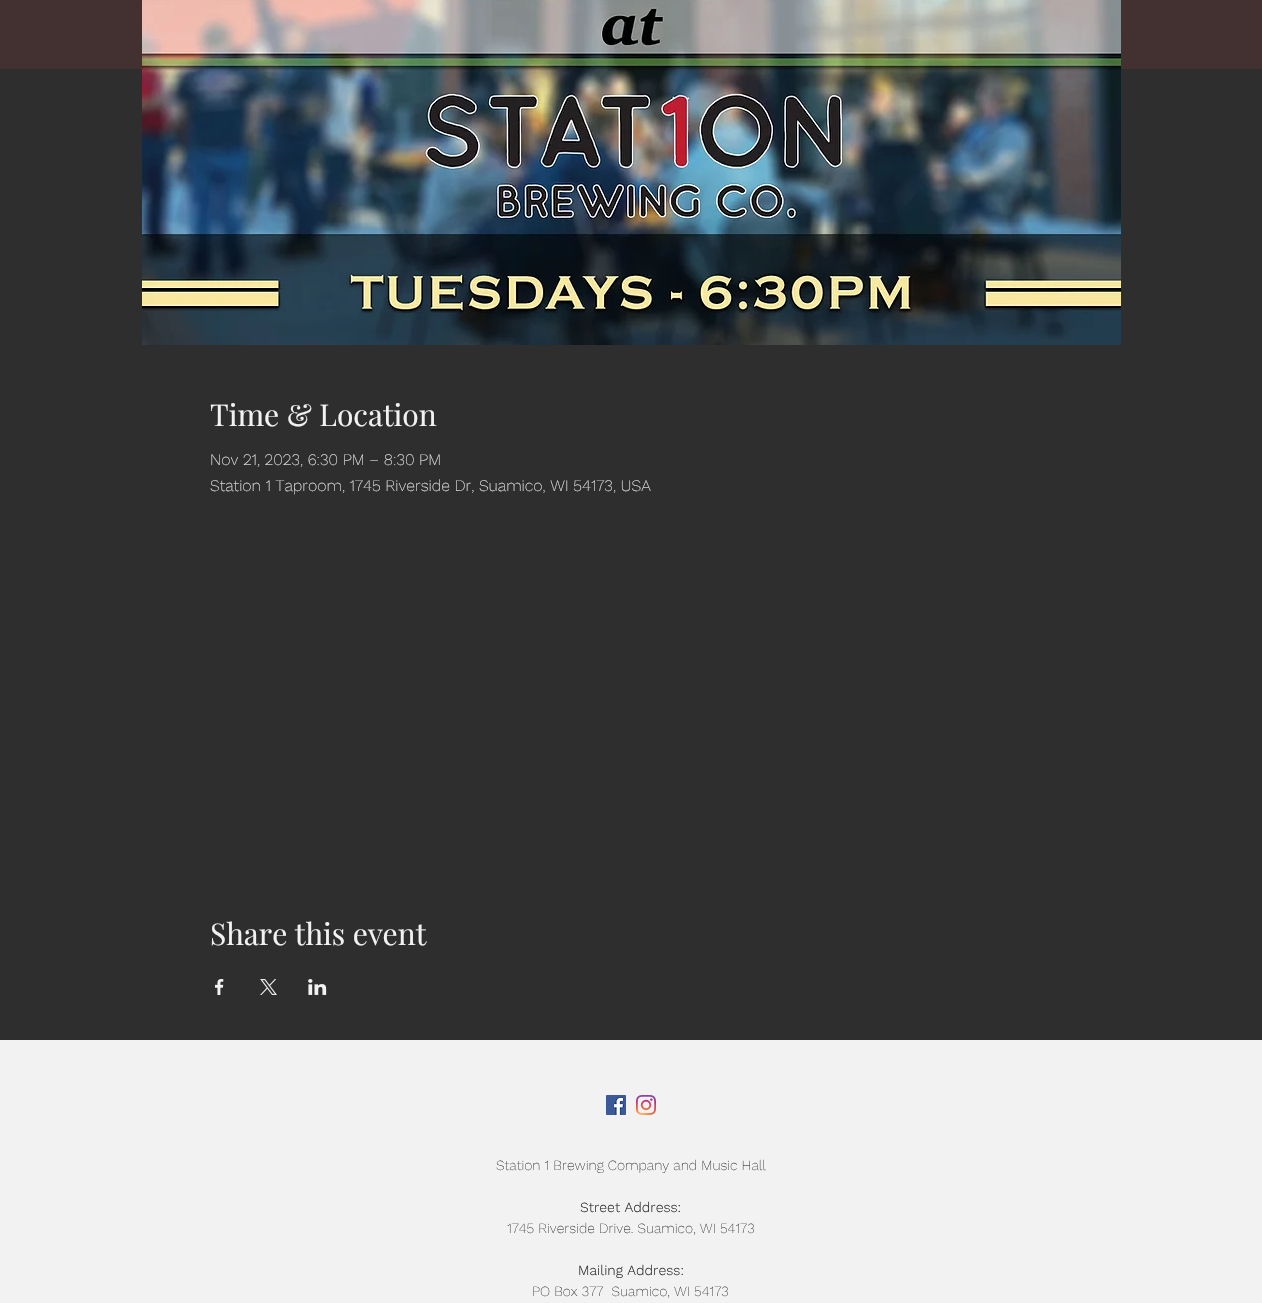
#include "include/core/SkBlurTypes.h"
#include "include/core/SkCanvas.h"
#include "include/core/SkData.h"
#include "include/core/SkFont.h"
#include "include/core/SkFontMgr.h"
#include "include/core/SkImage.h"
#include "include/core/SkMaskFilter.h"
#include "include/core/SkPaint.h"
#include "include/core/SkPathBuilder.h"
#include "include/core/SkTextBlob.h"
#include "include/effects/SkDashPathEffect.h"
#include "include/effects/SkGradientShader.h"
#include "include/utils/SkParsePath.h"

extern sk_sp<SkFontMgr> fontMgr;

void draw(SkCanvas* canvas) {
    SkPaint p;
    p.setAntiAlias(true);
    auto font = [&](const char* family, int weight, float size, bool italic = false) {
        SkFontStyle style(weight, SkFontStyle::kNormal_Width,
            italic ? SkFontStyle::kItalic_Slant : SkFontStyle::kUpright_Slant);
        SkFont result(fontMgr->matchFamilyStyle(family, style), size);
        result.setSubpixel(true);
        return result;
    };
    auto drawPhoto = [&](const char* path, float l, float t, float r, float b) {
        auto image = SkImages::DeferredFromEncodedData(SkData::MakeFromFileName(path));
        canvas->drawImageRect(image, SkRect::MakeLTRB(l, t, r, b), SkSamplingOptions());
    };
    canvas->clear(0xFF2F2E2E);
    p.setColor(0xFF423130);
    canvas->drawRect(SkRect::MakeLTRB(0, 0, 1262, 69), p);
    drawPhoto("media/1.png", 142, 0, 1121, 345);
    auto font1 = font("Playfair Display", 400, 30);
    p.setColor(0xFFF2F2F2);
    canvas->drawString("Time & Location", 210, 426, font1, p);
    auto font2 = font("Work Sans", 200, 16);
    canvas->drawString("Nov 21, 2023, 6:30 PM – 8:30 PM", 210, 465, font2, p);
    canvas->drawString("Station 1 Taproom, 1745 Riverside Dr, Suamico, WI 54173, USA", 210, 491, font2, p);
    canvas->drawString("Share this event", 210, 945, font1, p);
    drawPhoto("media/2.png", 215, 979, 224, 995);
    drawPhoto("media/3.png", 260, 979, 277, 995);
    drawPhoto("media/4.png", 308, 979, 327, 995);
    canvas->drawRect(SkRect::MakeLTRB(0, 1040, 1262, 1303), p);
    drawPhoto("media/5.png", 606, 1095, 626, 1115);
    drawPhoto("media/6.png", 636, 1095, 656, 1115);
    auto font3 = font("Work Sans", 200, 14);
    p.setColor(0xFF2F2E2E);
    canvas->drawString("Station 1 Brewing Company and Music Hall", 496, 1170, font3, p);
    auto font4 = font("Work Sans", 300, 14);
    canvas->drawString("Street Address:", 580, 1212, font4, p);
    canvas->drawString("1745 Riverside Drive. Suamico, WI 54173", 507, 1233, font3, p);
    canvas->drawString("Mailing Address:", 578, 1275, font4, p);
    canvas->drawString("PO Box 377  Suamico, WI 54173", 532, 1296, font3, p);
}
